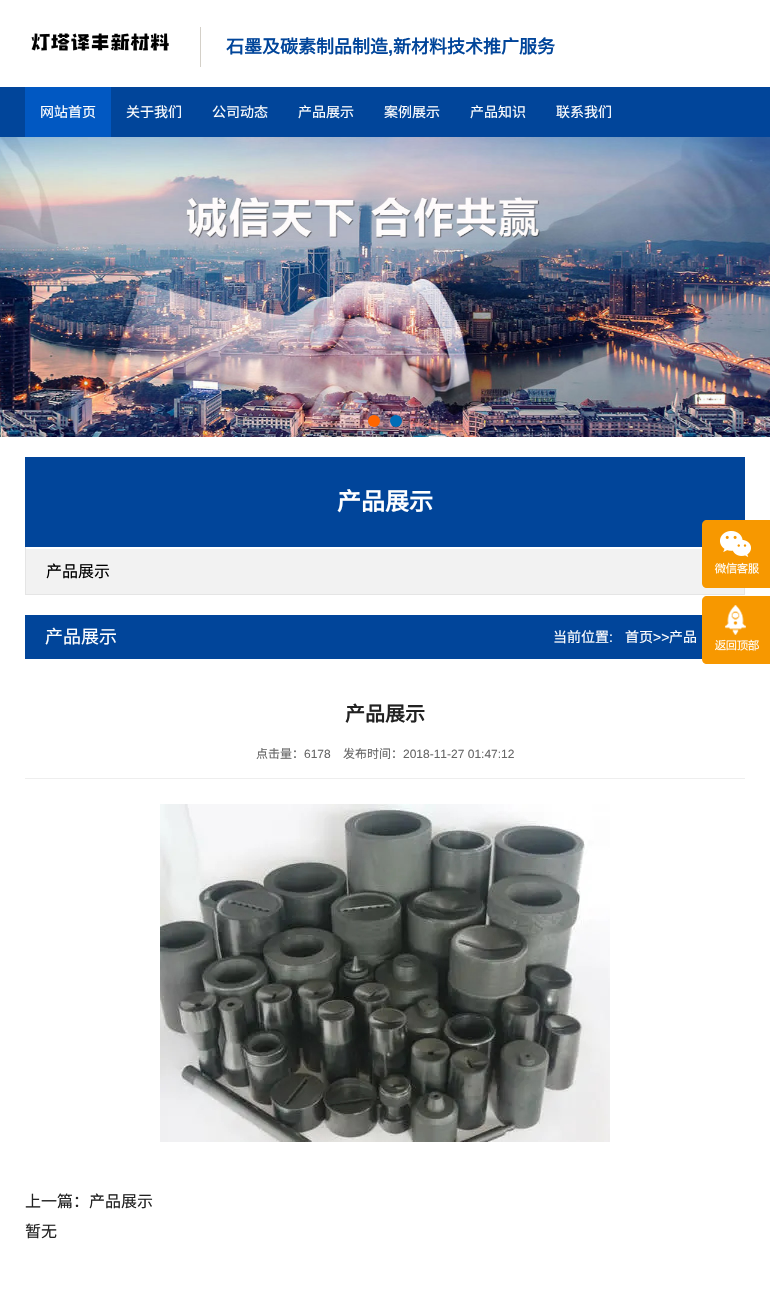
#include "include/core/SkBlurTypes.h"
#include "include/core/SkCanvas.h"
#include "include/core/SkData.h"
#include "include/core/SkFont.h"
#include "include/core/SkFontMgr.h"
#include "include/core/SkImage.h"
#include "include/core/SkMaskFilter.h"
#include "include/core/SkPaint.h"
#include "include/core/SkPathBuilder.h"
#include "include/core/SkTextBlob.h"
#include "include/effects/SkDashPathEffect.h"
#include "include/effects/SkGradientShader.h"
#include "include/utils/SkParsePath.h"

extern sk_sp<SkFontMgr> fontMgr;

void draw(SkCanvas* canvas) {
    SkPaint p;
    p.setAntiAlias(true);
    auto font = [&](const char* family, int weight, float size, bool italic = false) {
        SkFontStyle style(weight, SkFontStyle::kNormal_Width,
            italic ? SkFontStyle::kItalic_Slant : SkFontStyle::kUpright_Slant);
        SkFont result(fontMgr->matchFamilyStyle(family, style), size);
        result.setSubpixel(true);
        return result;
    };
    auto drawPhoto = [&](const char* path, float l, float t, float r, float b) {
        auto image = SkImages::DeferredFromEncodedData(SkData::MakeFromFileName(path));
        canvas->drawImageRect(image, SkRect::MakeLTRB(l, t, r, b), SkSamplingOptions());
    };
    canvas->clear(0xFFFFFFFF);
    drawPhoto("media/1.png", 31, 33, 169, 51);
    p.setColor(0xFFD4D0C8);
    canvas->drawRect(SkRect::MakeLTRB(200, 27, 201, 67), p);
    auto font1 = font("Noto Sans CJK SC", 700, 18);
    p.setColor(0xFF01459A);
    canvas->drawString("石墨及碳素制品制造", 226, 53, font1, p);
    auto font2 = font("Liberation Sans", 700, 18);
    canvas->drawString(",", 388, 53, font2, p);
    canvas->drawString("新材料技术推广服务", 393, 53, font1, p);
    canvas->drawRect(SkRect::MakeLTRB(0, 87, 770, 137), p);
    p.setColor(0xFF0158C2);
    canvas->drawRect(SkRect::MakeLTRB(25, 87, 111, 137), p);
    auto font3 = font("Noto Sans CJK SC", 400, 14);
    p.setColor(0xFFFFFFFF);
    {
        const struct { const char* s; float x, y; } items[] = {
            {"网站首页", 40, 117},
            {"关于我们", 126, 117},
            {"公司动态", 212, 117},
            {"产品展示", 298, 117},
            {"案例展示", 384, 117},
            {"产品知识", 470, 117},
            {"联系我们", 556, 117},
        };
        for (auto [s, x, y] : items) {
            canvas->drawString(s, x, y, font3, p);
        }
    }
    drawPhoto("media/2.png", 0, 137, 770, 437);
    p.setColor(0xFFFF6600);
    canvas->drawCircle(374, 421, 6, p);
    p.setColor(0xFF006DB7);
    canvas->drawCircle(396, 421, 6, p);
    p.setColor(0xFF01459A);
    canvas->drawRect(SkRect::MakeLTRB(25, 457, 745, 547), p);
    auto font4 = font("Noto Sans CJK SC", 700, 24);
    p.setColor(0xFFFFFFFF);
    canvas->drawString("产品展示", 337, 510, font4, p);
    {
        const struct { float l, t, r, b; SkColor color; } items[] = {
            {744, 588, 745, 595, 0xFFE5E5E5},
            {25, 594, 745, 595, 0xFFE5E5E5},
            {25, 547, 26, 595, 0xFFE5E5E5},
            {26, 549, 744, 594, 0xFFF2F2F2},
        };
        for (auto [l, t, r, b, color] : items) {
            p.setColor(color);
            canvas->drawRect(SkRect::MakeLTRB(l, t, r, b), p);
        }
    }
    auto font5 = font("Noto Sans CJK SC", 400, 16);
    p.setColor(0xFF000000);
    canvas->drawString("产品展示", 46, 577, font5, p);
    p.setColor(0xFF01459A);
    canvas->drawRect(SkRect::MakeLTRB(25, 615, 702, 659), p);
    auto font6 = font("Noto Sans CJK SC", 400, 18);
    p.setColor(0xFFFFFFFF);
    canvas->drawString("产品展示", 45, 643, font6, p);
    canvas->drawString("当前位置", 553, 642, font3, p);
    auto font7 = font("Liberation Sans", 400, 14);
    canvas->drawString(":", 609, 642, font7, p);
    canvas->drawString("首页", 625, 642, font3, p);
    canvas->drawString(">>", 653, 642, font7, p);
    canvas->drawString("产品", 669, 642, font3, p);
    auto font8 = font("Noto Sans CJK SC", 700, 20);
    p.setColor(0xFF222222);
    canvas->drawString("产品展示", 345, 721, font8, p);
    p.setColor(0xFFEEEEEE);
    canvas->drawRect(SkRect::MakeLTRB(25, 778, 745, 779), p);
    auto font9 = font("Noto Sans CJK SC", 400, 12);
    p.setColor(0xFF666666);
    canvas->drawString("点击量：", 256, 758, font9, p);
    auto font10 = font("Liberation Sans", 400, 12);
    canvas->drawString("6178", 304, 758, font10, p);
    canvas->drawString("发布时间：", 343, 758, font9, p);
    canvas->drawString("2018-11-27 01:47:12", 403, 758, font10, p);
    drawPhoto("media/3.png", 160, 804, 610, 1142);
    p.setColor(0xFF222222);
    canvas->drawString("上一篇：产品展示", 25, 1207, font5, p);
    canvas->drawString("暂无", 25, 1237, font5, p);
    p.setColor(0xFFF79800);
    canvas->drawPath(SkPathBuilder().moveTo(707, 520).lineTo(770, 520).lineTo(770, 588).lineTo(707, 588).cubicTo(704, 588, 702, 586, 702, 583).lineTo(702, 525).cubicTo(702, 522, 704, 520, 707, 520).close().detach(), p);
    drawPhoto("media/4.png", 714, 531, 759, 574);
    canvas->drawPath(SkPathBuilder().moveTo(707, 596).lineTo(770, 596).lineTo(770, 664).lineTo(707, 664).cubicTo(704, 664, 702, 662, 702, 659).lineTo(702, 601).cubicTo(702, 598, 704, 596, 707, 596).close().detach(), p);
    drawPhoto("media/5.png", 715, 605, 759, 651);
}
